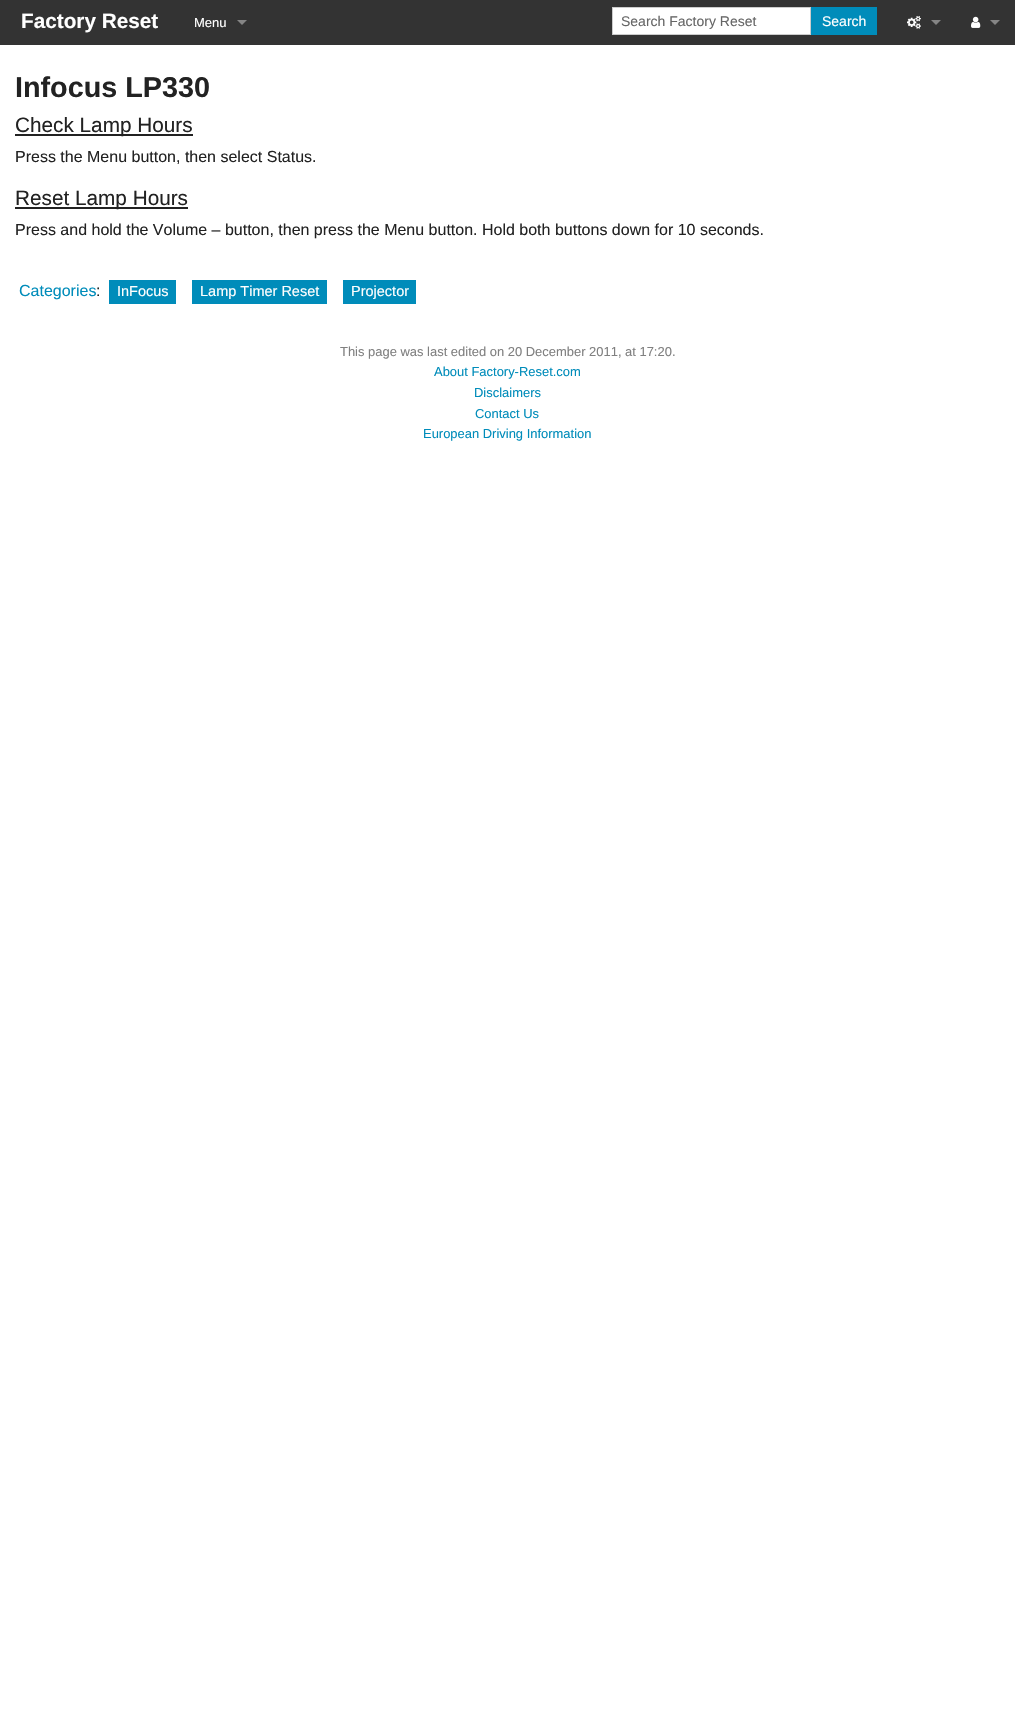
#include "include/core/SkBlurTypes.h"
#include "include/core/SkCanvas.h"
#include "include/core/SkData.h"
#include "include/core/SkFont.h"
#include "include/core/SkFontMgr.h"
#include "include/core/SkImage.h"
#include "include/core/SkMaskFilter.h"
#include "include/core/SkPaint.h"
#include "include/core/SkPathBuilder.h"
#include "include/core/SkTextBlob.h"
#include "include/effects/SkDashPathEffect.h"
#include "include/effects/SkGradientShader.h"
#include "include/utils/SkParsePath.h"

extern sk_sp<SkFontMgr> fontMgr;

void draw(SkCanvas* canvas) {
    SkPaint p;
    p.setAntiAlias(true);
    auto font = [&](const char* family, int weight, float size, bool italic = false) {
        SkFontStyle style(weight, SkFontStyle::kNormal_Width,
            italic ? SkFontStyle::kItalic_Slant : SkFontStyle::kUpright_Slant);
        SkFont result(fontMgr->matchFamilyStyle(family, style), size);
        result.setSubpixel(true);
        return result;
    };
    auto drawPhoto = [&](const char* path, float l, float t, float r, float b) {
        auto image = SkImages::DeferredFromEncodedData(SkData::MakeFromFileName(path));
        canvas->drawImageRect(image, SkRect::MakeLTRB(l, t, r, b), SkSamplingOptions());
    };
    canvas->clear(0xFFFFFFFF);
    p.setColor(0xFF333333);
    canvas->drawRect(SkRect::MakeLTRB(0, 0, 1015, 45), p);
    auto font1 = font("Liberation Sans", 700, 20.75f);
    p.setColor(0xFFFFFFFF);
    canvas->drawString("Factory Reset", 21, 28, font1, p);
    auto font2 = font("Liberation Sans", 400, 13);
    canvas->drawString("Menu", 194, 27, font2, p);
    p.setColor(0xFF858585);
    canvas->drawPath(SkPathBuilder().moveTo(237, 20).lineTo(247, 20).lineTo(242, 25).close().detach(), p);
    p.setColor(0xFFFFFFFF);
    canvas->drawRect(SkRect::MakeLTRB(612.5f, 7.5f, 810.5f, 34.5f), p);
    p.setStyle(SkPaint::kStroke_Style);
    p.setStrokeWidth(1);
    p.setColor(0xFFCCCCCC);
    canvas->drawRect(SkRect::MakeLTRB(612.5f, 7.5f, 810.5f, 34.5f), p);
    auto font3 = font("Liberation Sans", 400, 14);
    p.setStyle(SkPaint::kFill_Style);
    p.setColor(0xFF666666);
    canvas->drawString("Search Factory Reset", 621, 26, font3, p);
    p.setColor(0xFF008CBA);
    canvas->drawRect(SkRect::MakeLTRB(811, 7, 877, 35), p);
    p.setColor(0xFFFFFFFF);
    canvas->drawString("Search", 822, 26, font3, p);
    drawPhoto("media/1.png", 907, 16, 921, 29);
    p.setColor(0xFF858585);
    canvas->drawPath(SkPathBuilder().moveTo(931, 20).lineTo(941, 20).lineTo(936, 25).close().detach(), p);
    drawPhoto("media/2.png", 971, 16, 981, 28);
    canvas->drawPath(SkPathBuilder().moveTo(990, 20).lineTo(1000, 20).lineTo(995, 25).close().detach(), p);
    auto font4 = font("Liberation Sans", 700, 28.75f);
    p.setColor(0xFF222222);
    canvas->drawString("Infocus LP330", 15, 97, font4, p);
    canvas->drawRect(SkRect::MakeLTRB(15, 134, 193, 136), p);
    auto font5 = font("Liberation Sans", 400, 20.75f);
    canvas->drawString("Check Lamp Hours", 15, 132, font5, p);
    auto font6 = font("Liberation Sans", 400, 16);
    canvas->drawString("Press the Menu button, then select Status.", 15, 162, font6, p);
    canvas->drawRect(SkRect::MakeLTRB(15, 207, 188, 209), p);
    canvas->drawString("Reset Lamp Hours", 15, 205, font5, p);
    canvas->drawString("Press and hold the Volume – button, then press the Menu button. Hold both buttons down for 10 seconds.", 15, 235, font6, p);
    p.setColor(0xFF008CBA);
    canvas->drawString("Categories", 19, 296, font6, p);
    p.setColor(0xFF222222);
    canvas->drawString(":", 96, 296, font6, p);
    p.setColor(0xFF008CBA);
    canvas->drawRect(SkRect::MakeLTRB(109, 280, 176, 304), p);
    auto font7 = font("Liberation Sans", 400, 14.5f);
    p.setColor(0xFFFFFFFF);
    canvas->drawString("InFocus", 117, 296, font7, p);
    p.setColor(0xFF008CBA);
    canvas->drawRect(SkRect::MakeLTRB(192, 280, 327, 304), p);
    p.setColor(0xFFFFFFFF);
    canvas->drawString("Lamp Timer Reset", 200, 296, font7, p);
    p.setColor(0xFF008CBA);
    canvas->drawRect(SkRect::MakeLTRB(343, 280, 416, 304), p);
    p.setColor(0xFFFFFFFF);
    canvas->drawString("Projector", 351, 296, font7, p);
    auto font8 = font("Liberation Sans", 400, 12.95f);
    p.setColor(0xFF808080);
    canvas->drawString("This page was last edited on 20 December 2011, at 17:20.", 340, 356, font8, p);
    p.setColor(0xFF008CBA);
    {
        const struct { const char* s; float x, y; } items[] = {
            {"About Factory-Reset.com", 434, 376},
            {"Disclaimers", 474, 397},
            {"Contact Us", 475, 418},
            {"European Driving Information", 423, 438},
        };
        for (auto [s, x, y] : items) {
            canvas->drawString(s, x, y, font8, p);
        }
    }
}
